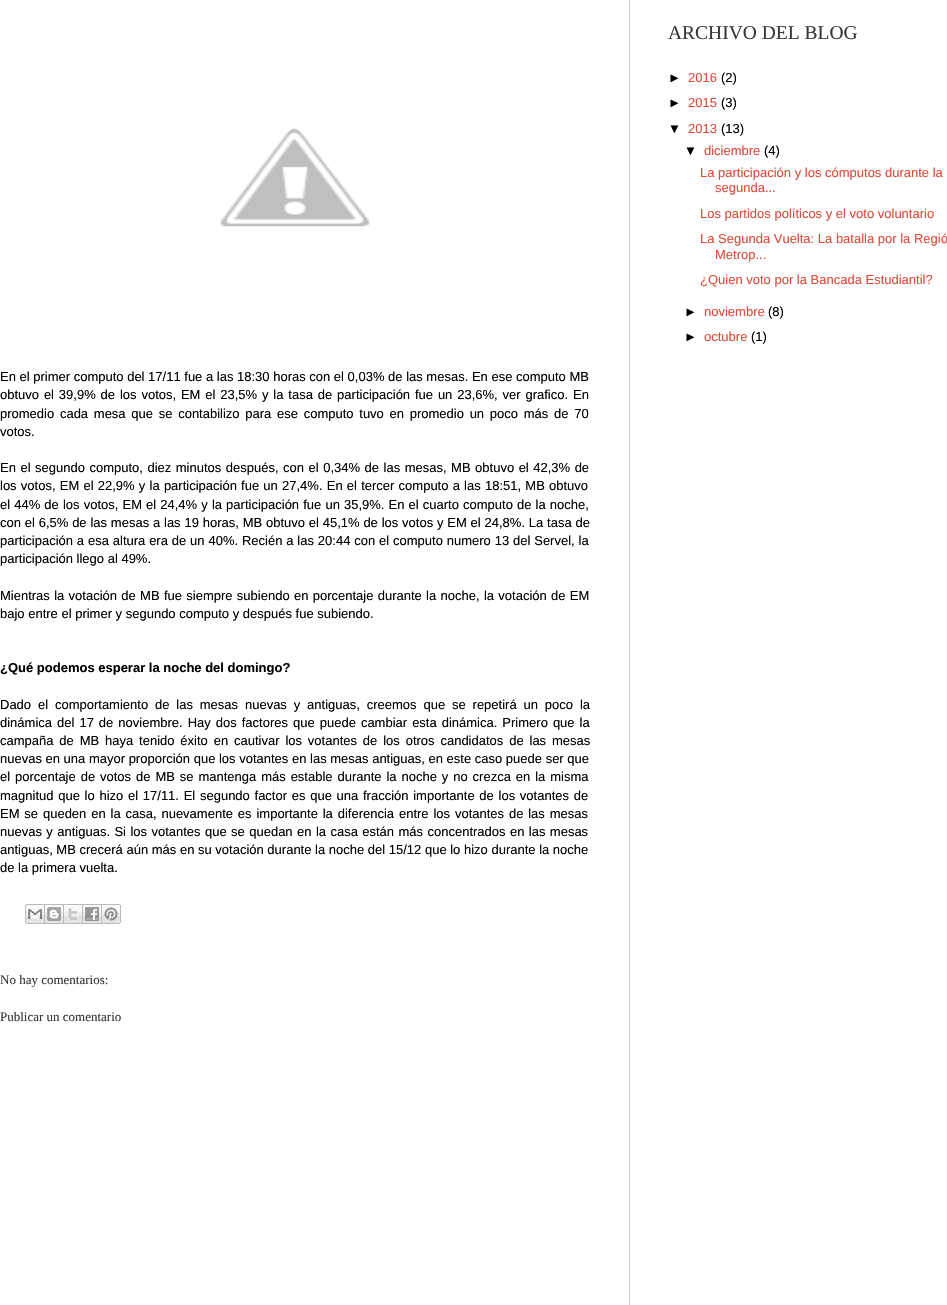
#include "include/core/SkBlurTypes.h"
#include "include/core/SkCanvas.h"
#include "include/core/SkData.h"
#include "include/core/SkFont.h"
#include "include/core/SkFontMgr.h"
#include "include/core/SkImage.h"
#include "include/core/SkMaskFilter.h"
#include "include/core/SkPaint.h"
#include "include/core/SkPathBuilder.h"
#include "include/core/SkTextBlob.h"
#include "include/effects/SkDashPathEffect.h"
#include "include/effects/SkGradientShader.h"
#include "include/utils/SkParsePath.h"

extern sk_sp<SkFontMgr> fontMgr;

void draw(SkCanvas* canvas) {
    SkPaint p;
    p.setAntiAlias(true);
    auto font = [&](const char* family, int weight, float size, bool italic = false) {
        SkFontStyle style(weight, SkFontStyle::kNormal_Width,
            italic ? SkFontStyle::kItalic_Slant : SkFontStyle::kUpright_Slant);
        SkFont result(fontMgr->matchFamilyStyle(family, style), size);
        result.setSubpixel(true);
        return result;
    };
    auto drawTracked = [&](const char* s, float x, float y, const SkFont& font, const SkPaint& ink, float letter, float word) {
        std::vector<SkGlyphID> glyphs(font.countText(s, strlen(s), SkTextEncoding::kUTF8));
        std::vector<float> xs(glyphs.size());
        font.textToGlyphs(s, strlen(s), SkTextEncoding::kUTF8, glyphs);
        font.getXPos(glyphs, xs, x);
        float extra = 0;
        for (size_t i = 0; i < glyphs.size(); i++) {
            xs[i] += extra;
            extra += letter + word * (glyphs[i] == font.unicharToGlyph(' '));
        }
        canvas->drawTextBlob(SkTextBlob::MakeFromPosHGlyphs(glyphs, xs, y, font), 0, 0, ink);
    };
    auto drawPhoto = [&](const char* path, float l, float t, float r, float b) {
        auto image = SkImages::DeferredFromEncodedData(SkData::MakeFromFileName(path));
        canvas->drawImageRect(image, SkRect::MakeLTRB(l, t, r, b), SkSamplingOptions());
    };
    canvas->clear(0xFFFFFFFF);
    auto font1 = font("Liberation Serif", 400, 19.5f);
    p.setColor(0xFF363636);
    canvas->drawString("ARCHIVO DEL BLOG", 668, 39, font1, p);
    auto font2 = font("Liberation Sans", 400, 13);
    p.setColor(0xFF000000);
    canvas->drawString("►", 668, 82, font2, p);
    p.setColor(0xFFDD4B39);
    canvas->drawString("2016", 688, 82, font2, p);
    p.setColor(0xFF000000);
    canvas->drawString("(2)", 721, 82, font2, p);
    canvas->drawString("►", 668, 107, font2, p);
    p.setColor(0xFFDD4B39);
    canvas->drawString("2015", 688, 107, font2, p);
    p.setColor(0xFF000000);
    canvas->drawString("(3)", 721, 107, font2, p);
    canvas->drawString("▼", 668, 133, font2, p);
    p.setColor(0xFFDD4B39);
    canvas->drawString("2013", 688, 133, font2, p);
    p.setColor(0xFF000000);
    canvas->drawString("(13)", 721, 133, font2, p);
    canvas->drawString("▼", 684, 155, font2, p);
    p.setColor(0xFFDD4B39);
    canvas->drawString("diciembre", 704, 155, font2, p);
    p.setColor(0xFF000000);
    canvas->drawString("(4)", 764, 155, font2, p);
    p.setColor(0xFFDD4B39);
    {
        const struct { const char* s; float x, y; } items[] = {
            {"La participación y los cómputos durante la", 700, 177},
            {"segunda...", 715, 192},
            {"Los partidos políticos y el voto voluntario", 700, 218},
            {"La Segunda Vuelta: La batalla por la Regió", 700, 243},
            {"Metrop...", 715, 259},
            {"¿Quien voto por la Bancada Estudiantil?", 700, 284},
        };
        for (auto [s, x, y] : items) {
            canvas->drawString(s, x, y, font2, p);
        }
    }
    p.setColor(0xFF000000);
    canvas->drawString("►", 684, 316, font2, p);
    p.setColor(0xFFDD4B39);
    canvas->drawString("noviembre", 704, 316, font2, p);
    p.setColor(0xFF000000);
    canvas->drawString("(8)", 768, 316, font2, p);
    canvas->drawString("►", 684, 341, font2, p);
    p.setColor(0xFFDD4B39);
    canvas->drawString("octubre", 704, 341, font2, p);
    p.setColor(0xFF000000);
    canvas->drawString("(1)", 751, 341, font2, p);
    p.setColor(0xFFCCCCCC);
    canvas->drawRect(SkRect::MakeLTRB(629, 0, 630, 1305), p);
    drawPhoto("media/1.png", 220, 128, 370, 227);
    p.setColor(0xFF000000);
    canvas->drawString("En el primer computo del 17/11 fue a las 18:30 horas con el 0,03% de las mesas. En ese computo MB", 0, 381, font2, p);
    drawTracked("obtuvo el 39,9% de los votos, EM el 23,5% y la tasa de participación fue un 23,6%, ver grafico. En", 0, 399, font2, p, 0, 1.25f);
    drawTracked("promedio cada mesa que se contabilizo para ese computo tuvo en promedio un poco más de 70", 0, 418, font2, p, 0, 2.1f);
    canvas->drawString("votos.", 0, 436, font2, p);
    drawTracked("En el segundo computo, diez minutos después, con el 0,34% de las mesas, MB obtuvo el 42,3% de", 0, 472, font2, p, 0, 0.9f);
    drawTracked("los votos, EM el 22,9% y la participación fue un 27,4%. En el tercer computo a las 18:51, MB obtuvo", 0, 490, font2, p, 0, 0.6f);
    drawTracked("el 44% de los votos, EM el 24,4% y la participación fue un 35,9%. En el cuarto computo de la noche,", 0, 509, font2, p, 0, 0.5f);
    drawTracked("con el 6,5% de las mesas a las 19 horas, MB obtuvo el 45,1% de los votos y EM el 24,8%. La tasa de", 0, 527, font2, p, 0, 0.2f);
    drawTracked("participación a esa altura era de un 40%. Recién a las 20:44 con el computo numero 13 del Servel, la", 0, 545, font2, p, 0, 0.25f);
    canvas->drawString("participación llego al 49%.", 0, 563, font2, p);
    drawTracked("Mientras la votación de MB fue siempre subiendo en porcentaje durante la noche, la votación de EM", 0, 600, font2, p, 0, 0.7f);
    canvas->drawString("bajo entre el primer y segundo computo y después fue subiendo.", 0, 618, font2, p);
    auto font3 = font("Liberation Sans", 700, 13);
    canvas->drawString("¿Qué podemos esperar la noche del domingo?", 0, 672, font3, p);
    drawTracked("Dado el comportamiento de las mesas nuevas y antiguas, creemos que se repetirá un poco la", 0, 709, font2, p, 0, 3.25f);
    drawTracked("dinámica del 17 de noviembre. Hay dos factores que puede cambiar esta dinámica. Primero que la", 0, 727, font2, p, 0, 1.4f);
    drawTracked("campaña de MB haya tenido éxito en cautivar los votantes de los otros candidatos de las mesas", 0, 745, font2, p, 0, 2.25f);
    canvas->drawString("nuevas en una mayor proporción que los votantes en las mesas antiguas, en este caso puede ser que", 0, 763, font2, p);
    drawTracked("el porcentaje de votos de MB se mantenga más estable durante la noche y no crezca en la misma", 0, 781, font2, p, 0, 1.3f);
    drawTracked("magnitud que lo hizo el 17/11. El segundo factor es que una fracción importante de los votantes de", 0, 800, font2, p, 0, 1.1f);
    drawTracked("EM se queden en la casa, nuevamente es importante la diferencia entre los votantes de las mesas", 0, 818, font2, p, 0, 1.25f);
    drawTracked("nuevas y antiguas. Si los votantes que se quedan en la casa están más concentrados en las mesas", 0, 836, font2, p, 0, 0.8f);
    canvas->drawString("antiguas, MB crecerá aún más en su votación durante la noche del 15/12 que lo hizo durante la noche", 0, 854, font2, p);
    canvas->drawString("de la primera vuelta.", 0, 872, font2, p);
    drawPhoto("media/2.png", 25, 904, 45, 924);
    drawPhoto("media/3.png", 45, 904, 64, 924);
    drawPhoto("media/4.png", 64, 904, 83, 924);
    drawPhoto("media/5.png", 83, 904, 102, 924);
    drawPhoto("media/6.png", 102, 904, 121, 924);
    auto font4 = font("Liberation Serif", 400, 13);
    p.setColor(0xFF363636);
    canvas->drawString("No hay comentarios:", 0, 984, font4, p);
    canvas->drawString("Publicar un comentario", 0, 1021, font4, p);
}
